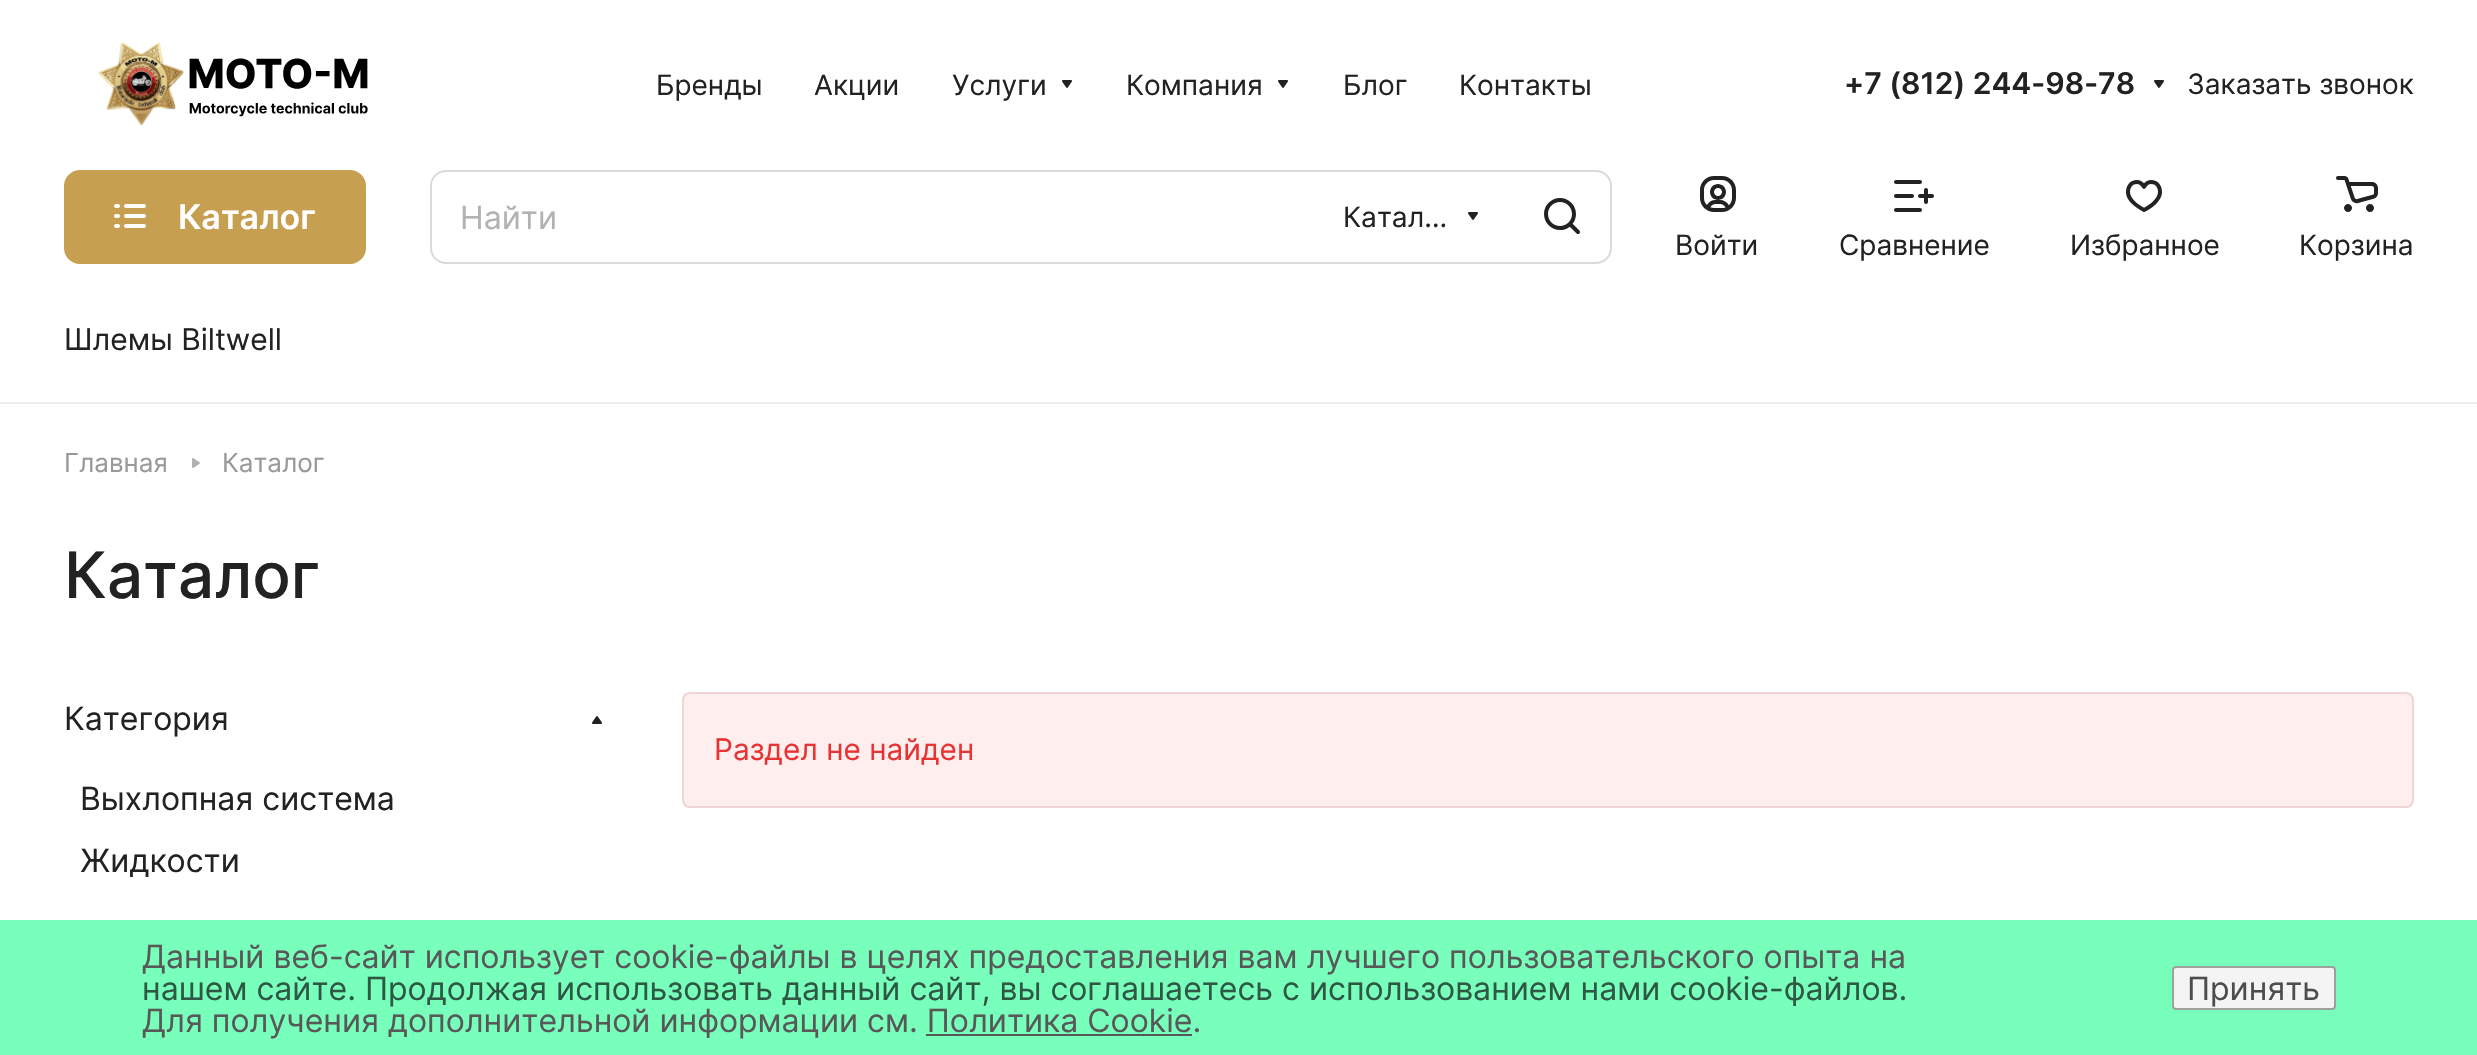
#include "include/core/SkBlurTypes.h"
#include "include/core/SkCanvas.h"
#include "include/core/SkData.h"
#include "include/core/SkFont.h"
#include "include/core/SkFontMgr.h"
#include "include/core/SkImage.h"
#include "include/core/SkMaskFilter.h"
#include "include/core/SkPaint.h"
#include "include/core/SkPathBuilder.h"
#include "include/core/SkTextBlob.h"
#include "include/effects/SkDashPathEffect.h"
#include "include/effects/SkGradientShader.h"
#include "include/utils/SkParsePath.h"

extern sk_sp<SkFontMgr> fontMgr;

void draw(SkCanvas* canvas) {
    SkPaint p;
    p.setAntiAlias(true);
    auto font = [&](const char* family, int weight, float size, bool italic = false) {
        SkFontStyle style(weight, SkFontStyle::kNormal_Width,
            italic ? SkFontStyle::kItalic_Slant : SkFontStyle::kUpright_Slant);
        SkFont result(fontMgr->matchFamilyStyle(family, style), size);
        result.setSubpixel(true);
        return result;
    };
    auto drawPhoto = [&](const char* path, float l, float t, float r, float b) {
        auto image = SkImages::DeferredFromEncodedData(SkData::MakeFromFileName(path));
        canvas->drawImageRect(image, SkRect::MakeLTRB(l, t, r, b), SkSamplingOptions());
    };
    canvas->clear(0xFFFFFFFF);
    p.setColor(0xFFEDEDED);
    canvas->drawRect(SkRect::MakeLTRB(0, 402, 2477, 404), p);
    drawPhoto("media/1.png", 98, 42, 368, 126);
    auto font1 = font("Inter", 400, 28);
    p.setColor(0xFF222222);
    {
        const struct { const char* s; float x, y; } items[] = {
            {"Бренды", 656, 95},
            {"Акции", 814, 95},
            {"Услуги", 952, 95},
        };
        for (auto [s, x, y] : items) {
            canvas->drawString(s, x, y, font1, p);
        }
    }
    drawPhoto("media/2.png", 1062, 80, 1072, 88);
    canvas->drawString("Компания", 1126, 95, font1, p);
    drawPhoto("media/2.png", 1278, 80, 1288, 88);
    canvas->drawString("Блог", 1343, 95, font1, p);
    canvas->drawString("Контакты", 1459, 95, font1, p);
    auto font2 = font("Inter", 600, 30);
    canvas->drawString("+7 (812) 244-98-78", 1844, 94, font2, p);
    drawPhoto("media/2.png", 2154, 80, 2164, 88);
    canvas->drawString("Заказать звонок", 2187, 94, font1, p);
    p.setColor(0xFFC79F51);
    canvas->drawRoundRect(SkRect::MakeLTRB(65, 171, 365, 263), 15, 15, p);
    p.setStyle(SkPaint::kStroke_Style);
    p.setStrokeWidth(2);
    canvas->drawRoundRect(SkRect::MakeLTRB(65, 171, 365, 263), 15, 15, p);
    drawPhoto("media/3.png", 114, 204, 146, 228);
    auto font3 = font("Inter", 600, 34);
    p.setStyle(SkPaint::kFill_Style);
    p.setColor(0xFFFFFFFF);
    canvas->drawString("Каталог", 178, 229, font3, p);
    p.setStyle(SkPaint::kStroke_Style);
    p.setColor(0xFFDADADA);
    canvas->drawRoundRect(SkRect::MakeLTRB(431, 171, 1611, 263), 15, 15, p);
    auto font4 = font("Inter", 400, 32);
    p.setStyle(SkPaint::kFill_Style);
    p.setColor(0xFFB2B2B2);
    canvas->drawString("Найти", 460, 229, font4, p);
    p.setColor(0xFF222222);
    canvas->drawString("Катал…", 1343, 227, font1, p);
    drawPhoto("media/2.png", 1468, 212, 1478, 220);
    drawPhoto("media/4.png", 1544, 198, 1580, 234);
    drawPhoto("media/5.png", 1700, 176, 1736, 212);
    canvas->drawString("Войти", 1675, 255, font1, p);
    drawPhoto("media/6.png", 1894, 180, 1934, 212);
    canvas->drawString("Сравнение", 1839, 255, font1, p);
    drawPhoto("media/7.png", 2126, 180, 2162, 212);
    canvas->drawString("Избранное", 2070, 255, font1, p);
    drawPhoto("media/8.png", 2336, 176, 2378, 212);
    canvas->drawString("Корзина", 2299, 255, font1, p);
    auto font5 = font("Inter", 400, 30);
    canvas->drawString("Шлемы Biltwell", 64, 350, font5, p);
    auto font6 = font("Inter", 400, 26);
    p.setColor(0xFF999999);
    canvas->drawString("Главная", 64, 472, font6, p);
    drawPhoto("media/9.png", 192, 458, 200, 468);
    canvas->drawString("Каталог", 222, 472, font6, p);
    auto font7 = font("Inter", 500, 64);
    p.setColor(0xFF222222);
    canvas->drawString("Каталог", 64, 598, font7, p);
    canvas->drawString("Категория", 64, 730, font4, p);
    drawPhoto("media/10.png", 592, 716, 602, 724);
    canvas->drawString("Выхлопная система", 80, 810, font4, p);
    canvas->drawString("Жидкости", 80, 872, font4, p);
    p.setColor(0xFFFFEEEE);
    canvas->drawRoundRect(SkRect::MakeLTRB(683, 693, 2413, 807), 7, 7, p);
    p.setStyle(SkPaint::kStroke_Style);
    p.setColor(0xFFEED3D7);
    canvas->drawRoundRect(SkRect::MakeLTRB(683, 693, 2413, 807), 7, 7, p);
    auto font8 = font("Inter", 400, 29.75f);
    p.setStyle(SkPaint::kFill_Style);
    p.setColor(0xFFE83333);
    canvas->drawString("Раздел не найден", 714, 760, font8, p);
    p.setColor(0xB33DFF9E);
    canvas->drawRect(SkRect::MakeLTRB(0, 920, 2477, 1055), p);
    p.setColor(0xFF585858);
    canvas->drawString("Данный веб-сайт использует cookie-файлы в целях предоставления вам лучшего пользовательского опыта на", 142, 968, font4, p);
    p.setColor(0xFF2F5844);
    canvas->drawString("нашем сайте. Продолжая использовать данный сайт, вы соглашаетесь с использованием нами cookie-файлов.", 142, 1000, font4, p);
    p.setColor(0xFF585858);
    canvas->drawString("Для получения дополнительной информации см. Политика Cookie.", 142, 1032, font4, p);
    canvas->drawRect(SkRect::MakeLTRB(926, 1034, 1192, 1036), p);
    p.setColor(0xFFF4F4F4);
    canvas->drawRoundRect(SkRect::MakeLTRB(2173, 967, 2335, 1009), 3, 3, p);
    p.setStyle(SkPaint::kStroke_Style);
    p.setColor(0xFF9F9F9F);
    canvas->drawRoundRect(SkRect::MakeLTRB(2173, 967, 2335, 1009), 3, 3, p);
    p.setStyle(SkPaint::kFill_Style);
    p.setColor(0xFF4D4D4D);
    canvas->drawString("Принять", 2187, 1000, font4, p);
}
